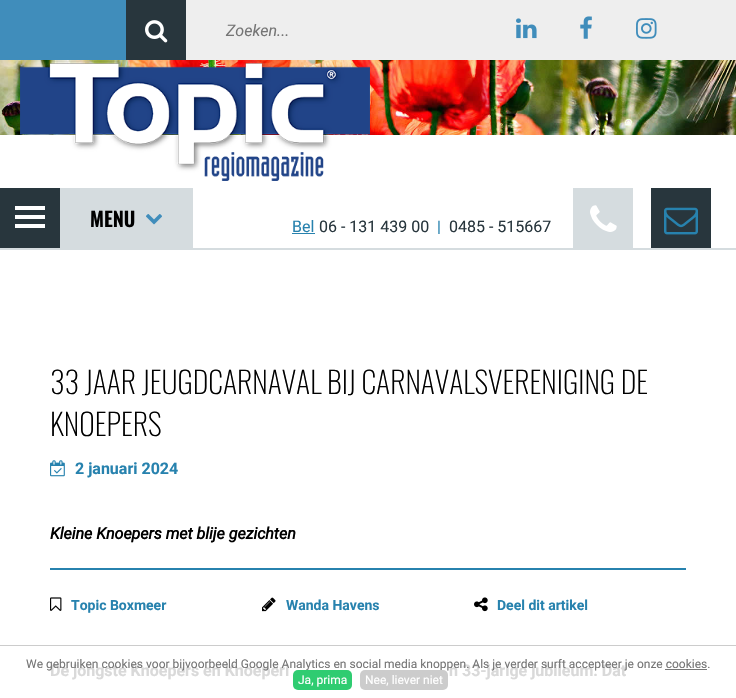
#include "include/core/SkBlurTypes.h"
#include "include/core/SkCanvas.h"
#include "include/core/SkData.h"
#include "include/core/SkFont.h"
#include "include/core/SkFontMgr.h"
#include "include/core/SkImage.h"
#include "include/core/SkMaskFilter.h"
#include "include/core/SkPaint.h"
#include "include/core/SkPathBuilder.h"
#include "include/core/SkTextBlob.h"
#include "include/effects/SkDashPathEffect.h"
#include "include/effects/SkGradientShader.h"
#include "include/utils/SkParsePath.h"

extern sk_sp<SkFontMgr> fontMgr;

void draw(SkCanvas* canvas) {
    SkPaint p;
    p.setAntiAlias(true);
    auto font = [&](const char* family, int weight, float size, bool italic = false) {
        SkFontStyle style(weight, SkFontStyle::kNormal_Width,
            italic ? SkFontStyle::kItalic_Slant : SkFontStyle::kUpright_Slant);
        SkFont result(fontMgr->matchFamilyStyle(family, style), size);
        result.setSubpixel(true);
        return result;
    };
    auto drawPhoto = [&](const char* path, float l, float t, float r, float b) {
        auto image = SkImages::DeferredFromEncodedData(SkData::MakeFromFileName(path));
        canvas->drawImageRect(image, SkRect::MakeLTRB(l, t, r, b), SkSamplingOptions());
    };
    canvas->clear(0xFFFFFFFF);
    {
        const struct { float l, t, r, b; SkColor color; } items[] = {
            {0, 0, 126, 60, 0xFF408DBB},
            {186, 0, 736, 60, 0xFFEEEEEE},
            {126, 0, 186, 60, 0xFF28363D},
        };
        for (auto [l, t, r, b, color] : items) {
            p.setColor(color);
            canvas->drawRect(SkRect::MakeLTRB(l, t, r, b), p);
        }
    }
    drawPhoto("media/1.png", 145, 20, 168, 43);
    auto font1 = font("Roboto", 400, 16, true);
    p.setColor(0xFF757575);
    canvas->drawString("Zoeken...", 226, 36, font1, p);
    drawPhoto("media/2.png", 516, 18, 537, 39);
    drawPhoto("media/3.png", 580, 16, 592, 39);
    drawPhoto("media/4.png", 636, 18, 657, 39);
    drawPhoto("media/5.png", 0, 60, 736, 135);
    {
        const struct { float l, t, r, b; SkColor color; } items[] = {
            {60, 188, 193, 248, 0xFFD5DCDF},
            {0, 188, 60, 248, 0xFF28363D},
            {15, 206, 45, 210, 0xFFFFFFFF},
            {15, 215, 45, 219, 0xFFFFFFFF},
            {15, 224, 45, 228, 0xFFFFFFFF},
        };
        for (auto [l, t, r, b, color] : items) {
            p.setColor(color);
            canvas->drawRect(SkRect::MakeLTRB(l, t, r, b), p);
        }
    }
    auto font2 = font("Oswald", 600, 20);
    p.setColor(0xFF000000);
    canvas->drawString("MENU", 90, 227, font2, p);
    drawPhoto("media/6.png", 146, 214, 162, 225);
    drawPhoto("media/7.png", 20, 60, 370, 181);
    auto font3 = font("Roboto", 400, 16);
    p.setColor(0xFF2782AE);
    canvas->drawString("Bel", 292, 232, font3, p);
    canvas->drawRect(SkRect::MakeLTRB(292, 233, 315, 234), p);
    p.setColor(0xFF28363D);
    canvas->drawString("06 - 131 439 00", 319, 232, font3, p);
    p.setColor(0xFF2782AE);
    canvas->drawString("|", 437, 232, font3, p);
    p.setColor(0xFF28363D);
    canvas->drawString("0485 - 515667", 449, 232, font3, p);
    p.setColor(0xFFD5DCDF);
    canvas->drawRect(SkRect::MakeLTRB(573, 188, 633, 248), p);
    drawPhoto("media/8.png", 590, 205, 617, 232);
    p.setColor(0xFF28363D);
    canvas->drawRect(SkRect::MakeLTRB(651, 188, 711, 248), p);
    drawPhoto("media/9.png", 664, 207, 698, 235);
    p.setColor(0xFFD5DCDF);
    canvas->drawRect(SkRect::MakeLTRB(0, 248, 736, 250), p);
    auto font4 = font("Oswald", 200, 30);
    p.setColor(0xFF000000);
    canvas->drawString("33 JAAR JEUGDCARNAVAL BIJ CARNAVALSVERENIGING DE", 50, 394, font4, p);
    canvas->drawString("KNOEPERS", 50, 436, font4, p);
    drawPhoto("media/10.png", 50, 460, 65, 477);
    auto font5 = font("Roboto", 700, 16);
    p.setColor(0xFF2782AE);
    canvas->drawString("2 januari 2024", 75, 474, font5, p);
    canvas->drawRect(SkRect::MakeLTRB(50, 568, 686, 570), p);
    auto font6 = font("Roboto", 700, 16, true);
    p.setColor(0xFF000000);
    canvas->drawString("Kleine Knoepers met blije gezichten", 50, 539, font6, p);
    drawPhoto("media/11.png", 50, 597, 62, 611);
    auto font7 = font("Roboto", 700, 14);
    p.setColor(0xFF2782AE);
    canvas->drawString("Topic Boxmeer", 71, 610, font7, p);
    drawPhoto("media/12.png", 262, 597, 276, 612);
    canvas->drawString("Wanda Havens", 286, 610, font7, p);
    drawPhoto("media/13.png", 474, 597, 488, 612);
    canvas->drawString("Deel dit artikel", 497, 610, font7, p);
    p.setColor(0xFFD9D9D9);
    canvas->drawString("De jongste Knoepers en Knoeperi", 50, 676, font5, p);
    canvas->drawString("n 33-jarige jubileum. Dat", 449, 676, font5, p);
    p.setColor(0xFFCCCCCC);
    canvas->drawRect(SkRect::MakeLTRB(0, 645, 736, 646), p);
    auto font8 = font("Roboto", 400, 12);
    p.setColor(0xFF757575);
    canvas->drawString("We gebruiken cookies voor bijvoorbeeld Google Analytics en social media knoppen. Als je verder surft accepteer je onze cookies.", 26, 668, font8, p);
    p.setColor(0xFF777777);
    canvas->drawRect(SkRect::MakeLTRB(665, 669, 707, 670), p);
    p.setColor(0xFF2FCC71);
    canvas->drawRoundRect(SkRect::MakeLTRB(293, 670, 352, 690), 5, 5, p);
    p.setColor(0xFFFFFFFF);
    canvas->drawString("Ja, prima", 298, 684, font8, p);
    p.setColor(0xFFCCCCCC);
    canvas->drawRoundRect(SkRect::MakeLTRB(360, 670, 448, 690), 5, 5, p);
    p.setColor(0xFFFFFFFF);
    canvas->drawString("Nee, liever niet", 365, 684, font8, p);
}
